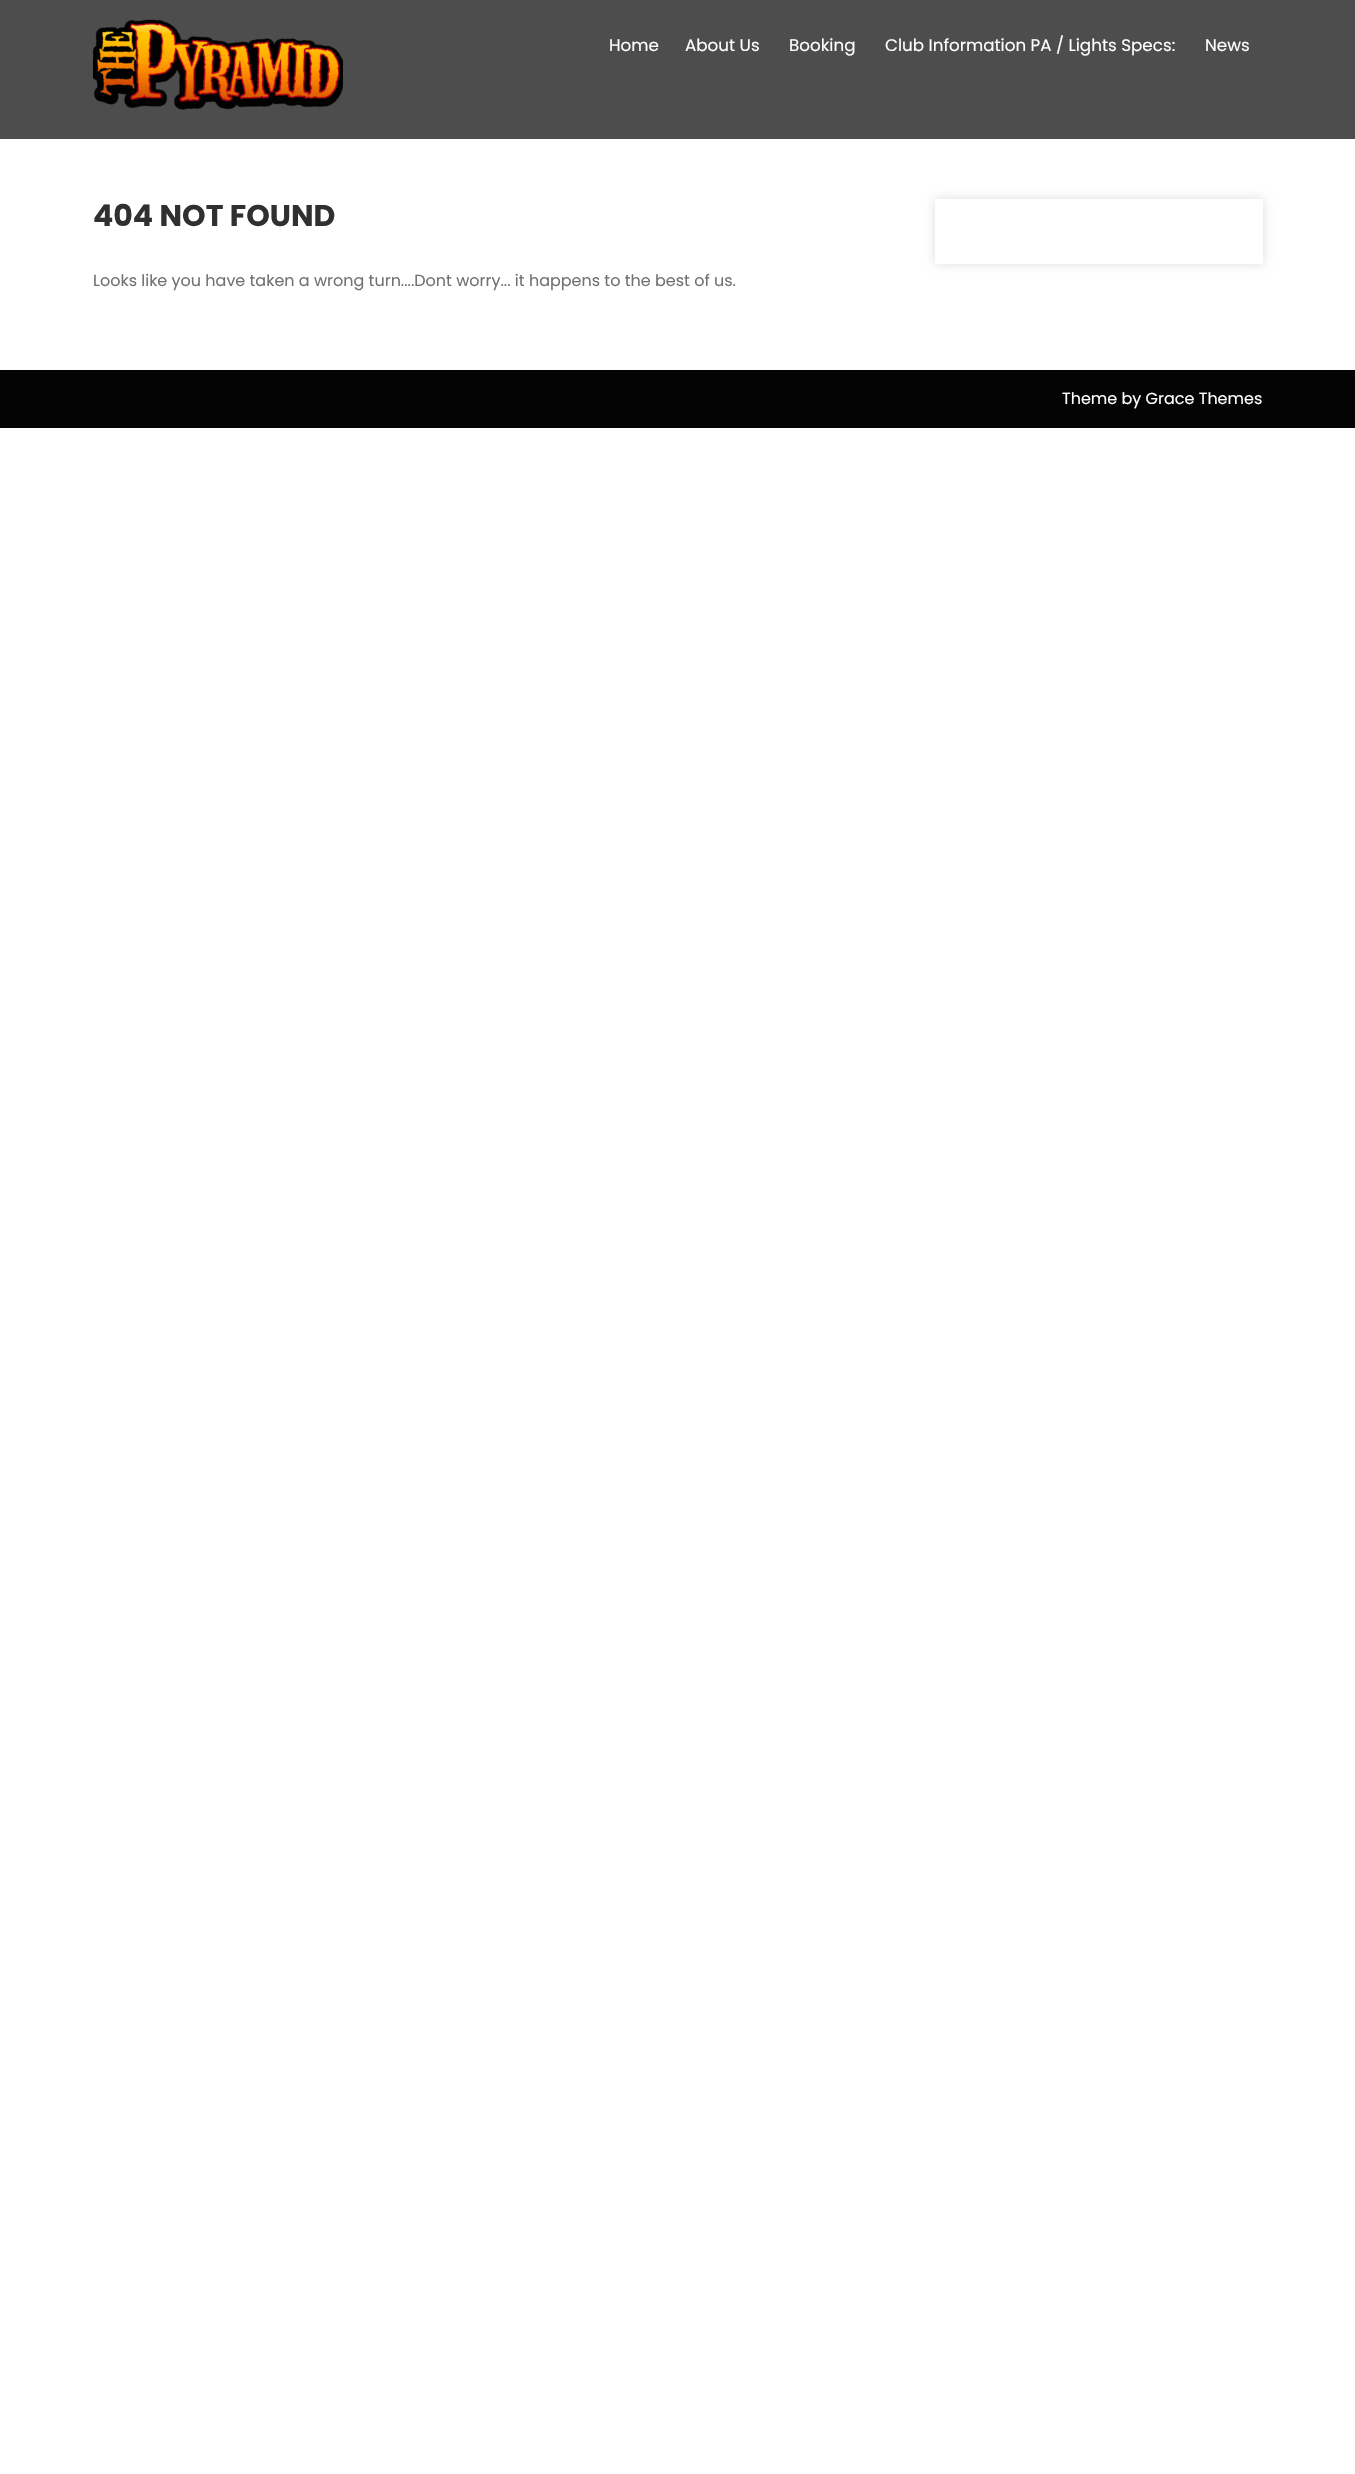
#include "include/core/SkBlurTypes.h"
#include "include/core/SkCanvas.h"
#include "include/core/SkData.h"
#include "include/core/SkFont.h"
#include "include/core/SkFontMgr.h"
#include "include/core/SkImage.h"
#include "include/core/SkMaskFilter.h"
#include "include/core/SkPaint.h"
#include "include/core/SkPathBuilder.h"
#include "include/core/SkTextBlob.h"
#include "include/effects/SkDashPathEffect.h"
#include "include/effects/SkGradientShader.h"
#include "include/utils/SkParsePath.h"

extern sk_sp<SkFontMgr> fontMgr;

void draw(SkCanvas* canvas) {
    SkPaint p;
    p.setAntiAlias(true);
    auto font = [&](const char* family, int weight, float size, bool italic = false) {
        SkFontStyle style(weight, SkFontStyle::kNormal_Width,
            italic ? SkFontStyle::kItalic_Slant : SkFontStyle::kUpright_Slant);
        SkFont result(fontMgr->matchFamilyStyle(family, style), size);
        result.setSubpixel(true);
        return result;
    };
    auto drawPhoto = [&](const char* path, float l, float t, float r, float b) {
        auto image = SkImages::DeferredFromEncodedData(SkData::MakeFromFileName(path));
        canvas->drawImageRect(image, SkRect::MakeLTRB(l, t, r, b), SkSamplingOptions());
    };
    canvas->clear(0xFFFFFFFF);
    p.setColor(0xFF4D4D4D);
    canvas->drawRect(SkRect::MakeLTRB(0, 0, 1355, 139), p);
    drawPhoto("media/1.png", 93, 19, 343, 110);
    auto font1 = font("Poppins", 400, 16.75f);
    p.setColor(0xFFFFFFFF);
    {
        const struct { const char* s; float x, y; } items[] = {
            {"Home", 609, 51},
            {"About Us", 685, 51},
            {"Booking", 789, 51},
            {"Club Information PA / Lights Specs:", 885, 51},
            {"News", 1205, 51},
        };
        for (auto [s, x, y] : items) {
            canvas->drawString(s, x, y, font1, p);
        }
    }
    auto font2 = font("Poppins", 700, 30);
    p.setColor(0xFF303030);
    canvas->drawString("404 NOT FOUND", 93, 226, font2, p);
    auto font3 = font("Poppins", 400, 16);
    p.setColor(0xFF717171);
    canvas->drawString("Looks like you have taken a wrong turn....Dont worry... it happens to the best of us.", 93, 286, font3, p);
    canvas->save();
    canvas->clipPath(SkPathBuilder(SkPathFillType::kEvenOdd).moveTo(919, 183).lineTo(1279, 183).lineTo(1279, 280).lineTo(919, 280).close().moveTo(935, 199).lineTo(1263, 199).lineTo(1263, 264).lineTo(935, 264).close().detach(), true);
    p.setColor(0xFFDDDDDD);
    p.setMaskFilter(SkMaskFilter::MakeBlur(kNormal_SkBlurStyle, 5));
    canvas->drawRect(SkRect::MakeLTRB(935, 199, 1263, 264), p);
    p.setMaskFilter(nullptr);
    canvas->restore();
    p.setColor(0xFF050404);
    canvas->drawRect(SkRect::MakeLTRB(0, 370, 1355, 428), p);
    p.setColor(0xFFFFFFFF);
    canvas->drawString("Theme by Grace Themes", 1062, 404, font3, p);
}
